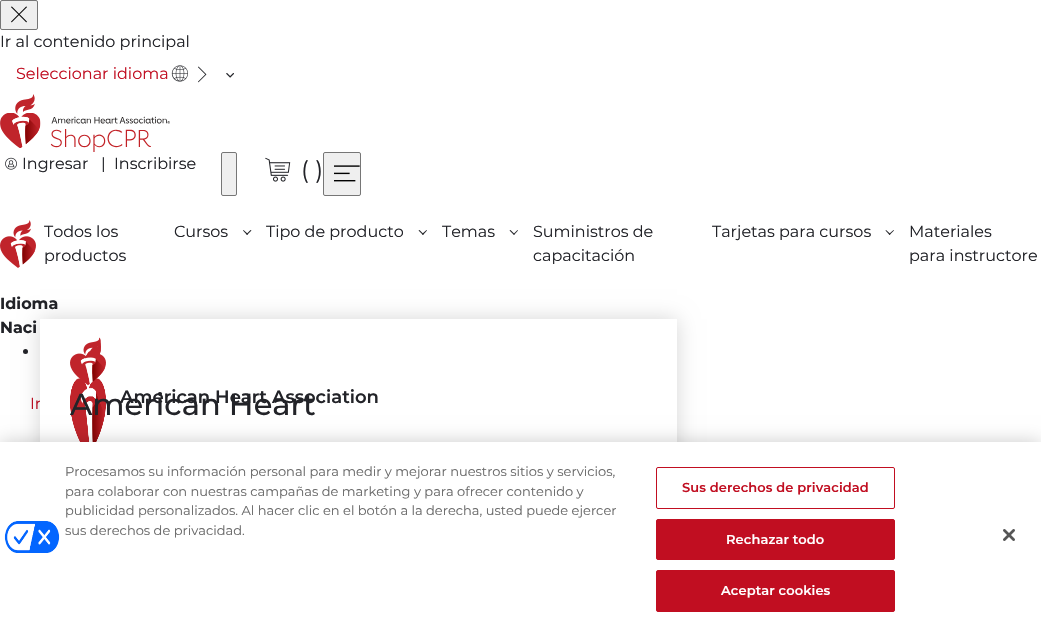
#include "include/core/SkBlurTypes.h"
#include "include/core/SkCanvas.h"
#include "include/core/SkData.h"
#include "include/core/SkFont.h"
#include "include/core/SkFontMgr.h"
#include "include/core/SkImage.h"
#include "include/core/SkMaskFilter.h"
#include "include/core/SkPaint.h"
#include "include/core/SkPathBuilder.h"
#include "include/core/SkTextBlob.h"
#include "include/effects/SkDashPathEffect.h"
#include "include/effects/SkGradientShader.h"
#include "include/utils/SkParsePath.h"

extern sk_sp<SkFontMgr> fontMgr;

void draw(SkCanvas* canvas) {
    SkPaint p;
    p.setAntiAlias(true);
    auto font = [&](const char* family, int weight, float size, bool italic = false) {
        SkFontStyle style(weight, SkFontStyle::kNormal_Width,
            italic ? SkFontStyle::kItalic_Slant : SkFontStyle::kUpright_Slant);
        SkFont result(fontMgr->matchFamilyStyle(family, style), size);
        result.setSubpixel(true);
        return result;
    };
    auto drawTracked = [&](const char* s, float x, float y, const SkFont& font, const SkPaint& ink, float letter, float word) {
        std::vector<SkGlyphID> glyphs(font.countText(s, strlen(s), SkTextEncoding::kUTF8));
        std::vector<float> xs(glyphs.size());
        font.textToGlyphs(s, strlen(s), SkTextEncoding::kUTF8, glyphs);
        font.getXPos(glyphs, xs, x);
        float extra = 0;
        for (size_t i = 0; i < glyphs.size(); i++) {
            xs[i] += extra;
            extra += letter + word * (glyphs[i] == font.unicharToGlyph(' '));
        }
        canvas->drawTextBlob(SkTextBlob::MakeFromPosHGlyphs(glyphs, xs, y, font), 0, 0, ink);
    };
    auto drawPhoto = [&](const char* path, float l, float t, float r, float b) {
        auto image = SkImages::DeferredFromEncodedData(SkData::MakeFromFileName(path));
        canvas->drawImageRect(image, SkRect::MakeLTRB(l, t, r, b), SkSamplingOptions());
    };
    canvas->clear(0xFFFFFFFF);
    p.setColor(0xFFEFEFEF);
    canvas->drawRoundRect(SkRect::MakeLTRB(0.5f, 0.5f, 37.5f, 29.5f), 1.5f, 1.5f, p);
    p.setStyle(SkPaint::kStroke_Style);
    p.setStrokeWidth(1);
    p.setColor(0xFF767676);
    canvas->drawRoundRect(SkRect::MakeLTRB(0.5f, 0.5f, 37.5f, 29.5f), 1.5f, 1.5f, p);
    drawPhoto("media/1.png", 11, 6, 27, 23);
    auto font1 = font("Montserrat", 400, 16);
    p.setStyle(SkPaint::kFill_Style);
    p.setColor(0xFF222328);
    canvas->drawString("Ir al contenido principal", 0, 47, font1, p);
    p.setColor(0xFFC10E21);
    canvas->drawString("Seleccionar idioma", 16, 79, font1, p);
    drawPhoto("media/2.png", 171, 65, 188, 82);
    drawPhoto("media/3.png", 198, 66, 207, 83);
    drawPhoto("media/4.png", 226, 73, 234, 78);
    drawPhoto("media/5.png", 0, 94, 170, 152);
    drawPhoto("media/6.png", 5, 157, 17, 170);
    p.setColor(0xFF222328);
    canvas->drawString("Ingresar   |  Inscribirse", 22, 169, font1, p);
    p.setColor(0xFFEFEFEF);
    canvas->drawRoundRect(SkRect::MakeLTRB(221.5f, 152.5f, 236.5f, 195.5f), 1.5f, 1.5f, p);
    p.setStyle(SkPaint::kStroke_Style);
    p.setColor(0xFF767676);
    canvas->drawRoundRect(SkRect::MakeLTRB(221.5f, 152.5f, 236.5f, 195.5f), 1.5f, 1.5f, p);
    drawPhoto("media/7.png", 265, 157, 291, 182);
    auto font2 = font("Montserrat", 400, 24);
    p.setStyle(SkPaint::kFill_Style);
    p.setColor(0xFF222328);
    canvas->drawString("( )", 301, 178, font2, p);
    p.setColor(0xFFEFEFEF);
    canvas->drawRoundRect(SkRect::MakeLTRB(323.5f, 152.5f, 360.5f, 195.5f), 1.5f, 1.5f, p);
    p.setStyle(SkPaint::kStroke_Style);
    p.setColor(0xFF767676);
    canvas->drawRoundRect(SkRect::MakeLTRB(323.5f, 152.5f, 360.5f, 195.5f), 1.5f, 1.5f, p);
    drawPhoto("media/8.png", 334, 165, 360, 182);
    drawPhoto("media/9.png", 0, 220, 36, 268);
    p.setStyle(SkPaint::kFill_Style);
    p.setColor(0xFF222328);
    {
        const struct { const char* s; float x, y; } items[] = {
            {"Todos los", 44, 237},
            {"productos", 44, 261},
            {"Cursos", 174, 237},
        };
        for (auto [s, x, y] : items) {
            canvas->drawString(s, x, y, font1, p);
        }
    }
    canvas->drawPath(SkPathBuilder().moveTo(251.5f, 230.5f).lineTo(247, 235).lineTo(246.5f, 234).lineTo(250.5f, 230).close().detach(), p);
    canvas->drawPath(SkPathBuilder().moveTo(248, 234).lineTo(247, 235).lineTo(243, 230.5f).lineTo(243.5f, 230).close().detach(), p);
    canvas->drawString("Tipo de producto", 266, 237, font1, p);
    canvas->drawPath(SkPathBuilder().moveTo(427, 230.5f).lineTo(423, 235).lineTo(422, 234).lineTo(426.5f, 230).close().detach(), p);
    canvas->drawPath(SkPathBuilder().moveTo(423.5f, 234).lineTo(423, 235).lineTo(418.5f, 230.5f).lineTo(419.5f, 230).close().detach(), p);
    canvas->drawString("Temas", 442, 237, font1, p);
    canvas->drawPath(SkPathBuilder().moveTo(518, 230.5f).lineTo(514, 235).lineTo(513.5f, 234).lineTo(517.5f, 230).close().detach(), p);
    canvas->drawPath(SkPathBuilder().moveTo(514.5f, 234).lineTo(514, 235).lineTo(509.5f, 230.5f).lineTo(510.5f, 230).close().detach(), p);
    {
        const struct { const char* s; float x, y; } items[] = {
            {"Suministros de", 533, 237},
            {"capacitación", 533, 261},
            {"Tarjetas para cursos", 712, 237},
        };
        for (auto [s, x, y] : items) {
            canvas->drawString(s, x, y, font1, p);
        }
    }
    canvas->drawPath(SkPathBuilder().moveTo(894, 230.5f).lineTo(889.5f, 235).lineTo(889, 234).lineTo(893.5f, 230).close().detach(), p);
    canvas->drawPath(SkPathBuilder().moveTo(890.5f, 234).lineTo(889.5f, 235).lineTo(885.5f, 230.5f).lineTo(886, 230).close().detach(), p);
    canvas->drawString("Materiales", 909, 237, font1, p);
    canvas->drawString("para instructore", 909, 261, font1, p);
    auto font3 = font("Montserrat", 700, 16);
    canvas->drawString("Idioma", 0, 309, font3, p);
    canvas->drawString("Naci", 0, 333, font3, p);
    canvas->drawCircle(25.5f, 351.5f, 2.5f, p);
    p.setColor(0xFFC10E21);
    canvas->drawString("In", 30, 409, font1, p);
    p.setColor(0x29000000);
    p.setMaskFilter(SkMaskFilter::MakeBlur(kNormal_SkBlurStyle, 10));
    canvas->drawRect(SkRect::MakeLTRB(40, 319, 677, 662), p);
    p.setMaskFilter(nullptr);
    p.setColor(0xFFFFFFFF);
    canvas->drawRect(SkRect::MakeLTRB(40, 319, 677, 442), p);
    drawPhoto("media/10.png", 70, 337, 106, 442);
    drawPhoto("media/11.png", 70, 338, 106, 386);
    auto font4 = font("Montserrat", 500, 30.5f);
    p.setColor(0xFF222328);
    canvas->drawString("American Heart", 70, 415, font4, p);
    auto font5 = font("Montserrat", 600, 18);
    canvas->drawString("American Heart Association", 120, 403, font5, p);
    p.setColor(0x33000000);
    p.setMaskFilter(SkMaskFilter::MakeBlur(kNormal_SkBlurStyle, 9));
    canvas->drawRect(SkRect::MakeLTRB(0, 442, 1041, 632), p);
    p.setMaskFilter(nullptr);
    p.setColor(0xFFFFFFFF);
    canvas->drawRect(SkRect::MakeLTRB(0, 442, 1041, 632), p);
    drawPhoto("media/12.png", 4, 521, 60, 553);
    auto font6 = font("Montserrat", 400, 13);
    p.setColor(0xFF696969);
    {
        const struct { const char* s; float x, y; } items[] = {
            {"Procesamos su información personal para medir y mejorar nuestros sitios y servicios,", 65, 476},
            {"para colaborar con nuestras campañas de marketing y para ofrecer contenido y", 65, 496},
            {"publicidad personalizados. Al hacer clic en el botón a la derecha, usted puede ejercer", 65, 515},
            {"sus derechos de privacidad.", 65, 535},
        };
        for (auto [s, x, y] : items) {
            canvas->drawString(s, x, y, font6, p);
        }
    }
    p.setStyle(SkPaint::kStroke_Style);
    p.setColor(0xFFC10E21);
    canvas->drawRoundRect(SkRect::MakeLTRB(656.5f, 467.5f, 894.5f, 508.5f), 1.5f, 1.5f, p);
    auto font7 = font("Montserrat", 600, 13);
    p.setStyle(SkPaint::kFill_Style);
    drawTracked("Sus derechos de privacidad", 682, 492, font7, p, 0.1f, 0);
    canvas->drawRoundRect(SkRect::MakeLTRB(656.5f, 519.5f, 894.5f, 559.5f), 1.5f, 1.5f, p);
    p.setStyle(SkPaint::kStroke_Style);
    canvas->drawRoundRect(SkRect::MakeLTRB(656.5f, 519.5f, 894.5f, 559.5f), 1.5f, 1.5f, p);
    p.setStyle(SkPaint::kFill_Style);
    p.setColor(0xFFFFFFFF);
    drawTracked("Rechazar todo", 726, 544, font7, p, 0.1f, 0);
    p.setColor(0xFFC10E21);
    canvas->drawRoundRect(SkRect::MakeLTRB(656.5f, 570.5f, 894.5f, 611.5f), 1.5f, 1.5f, p);
    p.setStyle(SkPaint::kStroke_Style);
    canvas->drawRoundRect(SkRect::MakeLTRB(656.5f, 570.5f, 894.5f, 611.5f), 1.5f, 1.5f, p);
    p.setStyle(SkPaint::kFill_Style);
    p.setColor(0xFFFFFFFF);
    drawTracked("Aceptar cookies", 721, 595, font7, p, 0.1f, 0);
    drawPhoto("media/13.png", 1003, 529, 1015, 541);
}
